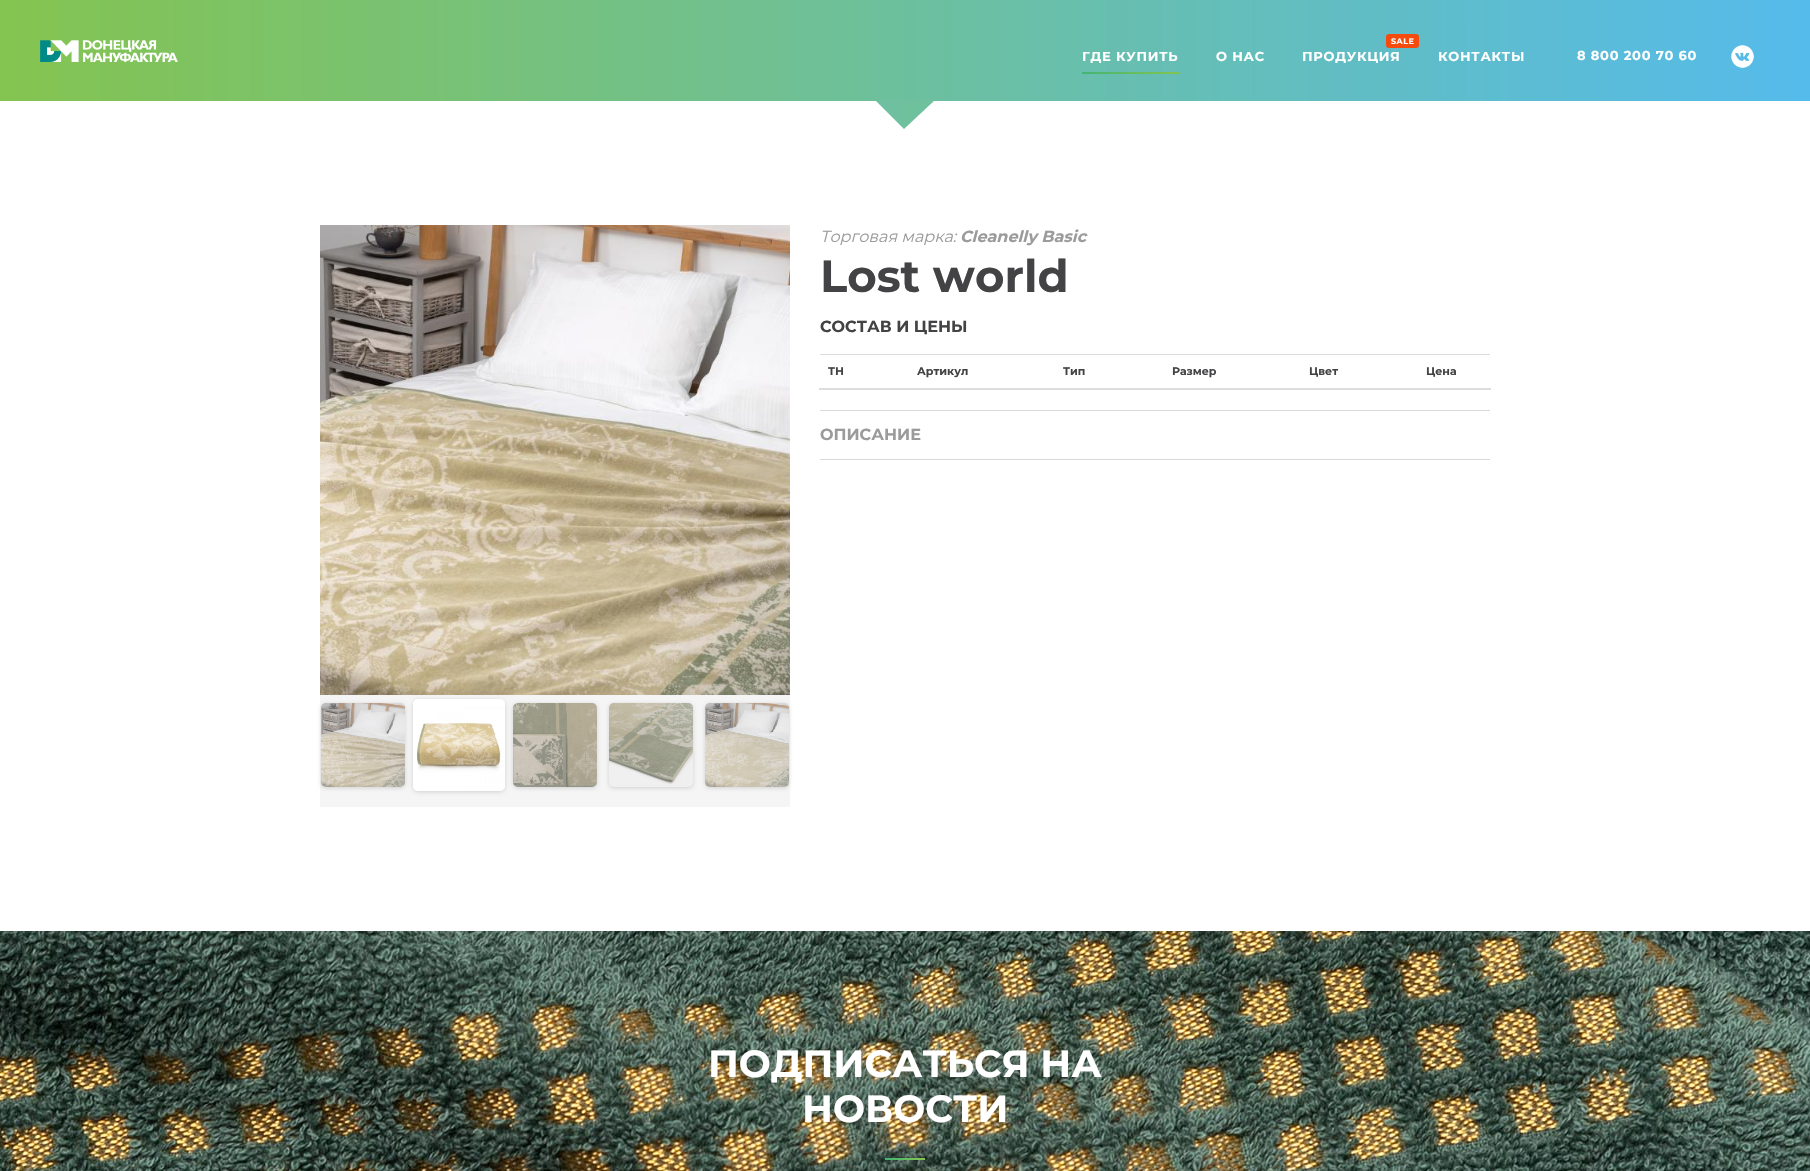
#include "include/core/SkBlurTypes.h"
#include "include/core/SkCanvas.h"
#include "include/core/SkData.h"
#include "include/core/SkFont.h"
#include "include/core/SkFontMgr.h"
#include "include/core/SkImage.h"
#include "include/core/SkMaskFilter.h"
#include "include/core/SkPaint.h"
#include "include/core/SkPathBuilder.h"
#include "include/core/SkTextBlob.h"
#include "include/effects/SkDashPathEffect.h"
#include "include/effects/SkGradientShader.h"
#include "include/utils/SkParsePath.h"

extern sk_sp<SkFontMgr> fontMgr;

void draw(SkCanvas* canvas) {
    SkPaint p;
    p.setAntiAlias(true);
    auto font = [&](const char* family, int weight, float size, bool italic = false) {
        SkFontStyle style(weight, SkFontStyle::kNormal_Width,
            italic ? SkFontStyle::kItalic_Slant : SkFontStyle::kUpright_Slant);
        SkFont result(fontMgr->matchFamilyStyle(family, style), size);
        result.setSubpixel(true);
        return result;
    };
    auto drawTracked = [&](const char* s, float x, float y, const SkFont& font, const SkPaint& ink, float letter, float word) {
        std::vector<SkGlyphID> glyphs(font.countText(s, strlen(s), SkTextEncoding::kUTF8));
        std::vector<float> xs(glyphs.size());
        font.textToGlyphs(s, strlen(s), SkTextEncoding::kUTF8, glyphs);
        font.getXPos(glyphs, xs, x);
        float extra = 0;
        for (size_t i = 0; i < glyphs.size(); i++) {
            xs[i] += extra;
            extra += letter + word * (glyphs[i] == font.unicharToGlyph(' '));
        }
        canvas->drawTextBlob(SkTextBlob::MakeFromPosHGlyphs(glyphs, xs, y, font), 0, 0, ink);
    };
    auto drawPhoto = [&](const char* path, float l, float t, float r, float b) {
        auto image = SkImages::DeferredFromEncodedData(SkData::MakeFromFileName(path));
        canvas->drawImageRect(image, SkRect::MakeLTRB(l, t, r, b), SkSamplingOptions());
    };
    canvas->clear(0xFFFFFFFF);
    {
        const SkColor colors[] = {0xFF55BBEB, 0xFF84C450};
        const float stops[] = {0, 1};
        const SkPoint ends[] = {{1810, 50}, {0, 51}};
        p.setShader(SkGradientShader::MakeLinear(ends, colors, stops, 2, SkTileMode::kClamp));
        p.setAlpha(255);
    }
    canvas->drawRect(SkRect::MakeLTRB(0, 0, 1810, 101), p);
    {
        const SkColor colors[] = {0xFF6EC0A1, 0xFF6FC19C};
        const float stops[] = {0, 1};
        const SkPoint ends[] = {{875, 100}, {935, 100}};
        p.setShader(SkGradientShader::MakeLinear(ends, colors, stops, 2, SkTileMode::kClamp));
        p.setAlpha(255);
    }
    canvas->drawPath(SkPathBuilder().moveTo(875, 100).lineTo(935, 100).lineTo(904, 129).detach(), p);
    drawPhoto("media/1.png", 40, 40, 178, 62);
    auto font1 = font("Montserrat", 700, 13);
    p.setShader(nullptr);
    p.setColor(0xFFFFFFFF);
    drawTracked("ГДЕ КУПИТЬ", 1082, 61, font1, p, 0.75f, 0);
    {
        const SkColor colors[] = {0xFF42B574, 0xFF84C450};
        const float stops[] = {0, 1};
        const SkPoint ends[] = {{1082, 73}, {1179, 73}};
        p.setShader(SkGradientShader::MakeLinear(ends, colors, stops, 2, SkTileMode::kClamp));
        p.setAlpha(255);
    }
    canvas->drawRect(SkRect::MakeLTRB(1082, 72, 1179, 74), p);
    p.setShader(nullptr);
    p.setColor(0xFFFFFFFF);
    drawTracked("О НАС", 1216, 61, font1, p, 0.75f, 0);
    p.setColor(0xFFF54B0F);
    canvas->drawRoundRect(SkRect::MakeLTRB(1386, 34, 1419, 48), 3, 3, p);
    auto font2 = font("Montserrat", 700, 8);
    p.setColor(0xFFFFFFFF);
    drawTracked("SALE", 1391, 44, font2, p, 0.5f, 0);
    {
        const struct { const char* s; float x, y; } items[] = {
            {"ПРОДУКЦИЯ", 1302, 61},
            {"КОНТАКТЫ", 1438, 61},
            {"8 800 200 70 60", 1577, 60},
        };
        for (auto [s, x, y] : items) {
            drawTracked(s, x, y, font1, p, 0.75f, 0);
        }
    }
    drawPhoto("media/2.png", 1731, 45, 1754, 68);
    p.setColor(0xFFF5F5F5);
    canvas->drawRect(SkRect::MakeLTRB(320, 695, 790, 807), p);
    drawPhoto("media/3.png", 320, 225, 790, 695);
    p.setColor(0x26000000);
    p.setMaskFilter(SkMaskFilter::MakeBlur(kNormal_SkBlurStyle, 2));
    canvas->drawRoundRect(SkRect::MakeLTRB(321, 704, 405, 788), 5, 5, p);
    p.setMaskFilter(nullptr);
    p.setColor(0xFFD9D9D9);
    canvas->drawRoundRect(SkRect::MakeLTRB(321, 703, 405, 787), 5, 5, p);
    drawPhoto("media/4.png", 321, 703, 405, 787);
    p.setColor(0x26000000);
    p.setMaskFilter(SkMaskFilter::MakeBlur(kNormal_SkBlurStyle, 2));
    canvas->drawRoundRect(SkRect::MakeLTRB(413, 700, 505, 792), 6, 6, p);
    p.setMaskFilter(nullptr);
    drawPhoto("media/5.png", 413, 699, 505, 791);
    p.setMaskFilter(SkMaskFilter::MakeBlur(kNormal_SkBlurStyle, 2));
    canvas->drawRoundRect(SkRect::MakeLTRB(513, 704, 597, 788), 5, 5, p);
    p.setMaskFilter(nullptr);
    p.setColor(0xFFD9D9D9);
    canvas->drawRoundRect(SkRect::MakeLTRB(513, 703, 597, 787), 5, 5, p);
    drawPhoto("media/6.png", 513, 703, 597, 787);
    p.setColor(0x26000000);
    p.setMaskFilter(SkMaskFilter::MakeBlur(kNormal_SkBlurStyle, 2));
    canvas->drawRoundRect(SkRect::MakeLTRB(609, 704, 693, 788), 5, 5, p);
    p.setMaskFilter(nullptr);
    p.setColor(0xFFD9D9D9);
    canvas->drawRoundRect(SkRect::MakeLTRB(609, 703, 693, 787), 5, 5, p);
    drawPhoto("media/7.png", 609, 703, 693, 787);
    p.setColor(0x26000000);
    p.setMaskFilter(SkMaskFilter::MakeBlur(kNormal_SkBlurStyle, 2));
    canvas->drawRoundRect(SkRect::MakeLTRB(705, 704, 789, 788), 5, 5, p);
    p.setMaskFilter(nullptr);
    p.setColor(0xFFD9D9D9);
    canvas->drawRoundRect(SkRect::MakeLTRB(705, 703, 789, 787), 5, 5, p);
    drawPhoto("media/8.png", 705, 703, 789, 787);
    auto font3 = font("Montserrat", 400, 16, true);
    p.setColor(0xFF9B9B9B);
    canvas->drawString("Торговая марка:", 820, 242, font3, p);
    auto font4 = font("Montserrat", 700, 16, true);
    canvas->drawString("Cleanelly Basic", 960, 242, font4, p);
    auto font5 = font("Montserrat", 700, 45);
    p.setColor(0xFF434345);
    canvas->drawString("Lost world", 820, 292, font5, p);
    p.setColor(0xFFD9D9D9);
    canvas->drawRect(SkRect::MakeLTRB(820, 410, 1490, 411), p);
    auto font6 = font("Montserrat", 700, 16);
    p.setColor(0xFF434345);
    canvas->drawString("СОСТАВ И ЦЕНЫ", 820, 332, font6, p);
    auto font7 = font("Montserrat", 700, 11);
    {
        const struct { const char* s; float x, y; } items[] = {
            {"ТН", 828, 375},
            {"Артикул", 917, 375},
            {"Тип", 1063, 375},
            {"Размер", 1172, 375},
            {"Цвет", 1309, 375},
        };
        for (auto [s, x, y] : items) {
            canvas->drawString(s, x, y, font7, p);
        }
    }
    p.setColor(0xFFDDDDDD);
    canvas->drawRect(SkRect::MakeLTRB(820, 354, 1490, 355), p);
    canvas->drawRect(SkRect::MakeLTRB(819, 388, 1491, 390), p);
    p.setColor(0xFF434345);
    canvas->drawString("Цена", 1426, 375, font7, p);
    p.setColor(0xFFD9D9D9);
    canvas->drawRect(SkRect::MakeLTRB(820, 459, 1490, 460), p);
    p.setColor(0xFF9B9B9B);
    canvas->drawString("ОПИСАНИЕ", 820, 440, font6, p);
    drawPhoto("media/9.png", 0, 931, 1810, 1171);
    auto font8 = font("Montserrat", 700, 38);
    p.setColor(0xFFFFFFFF);
    canvas->drawString("ПОДПИСАТЬСЯ НА", 708, 1077, font8, p);
    canvas->drawString("НОВОСТИ", 802, 1122, font8, p);
    {
        const SkColor colors[] = {0xFF42B574, 0xFF84C450};
        const float stops[] = {0, 1};
        const SkPoint ends[] = {{885, 1159}, {925, 1159}};
        p.setShader(SkGradientShader::MakeLinear(ends, colors, stops, 2, SkTileMode::kClamp));
        p.setAlpha(255);
    }
    canvas->drawRect(SkRect::MakeLTRB(885, 1158, 925, 1160), p);
}
